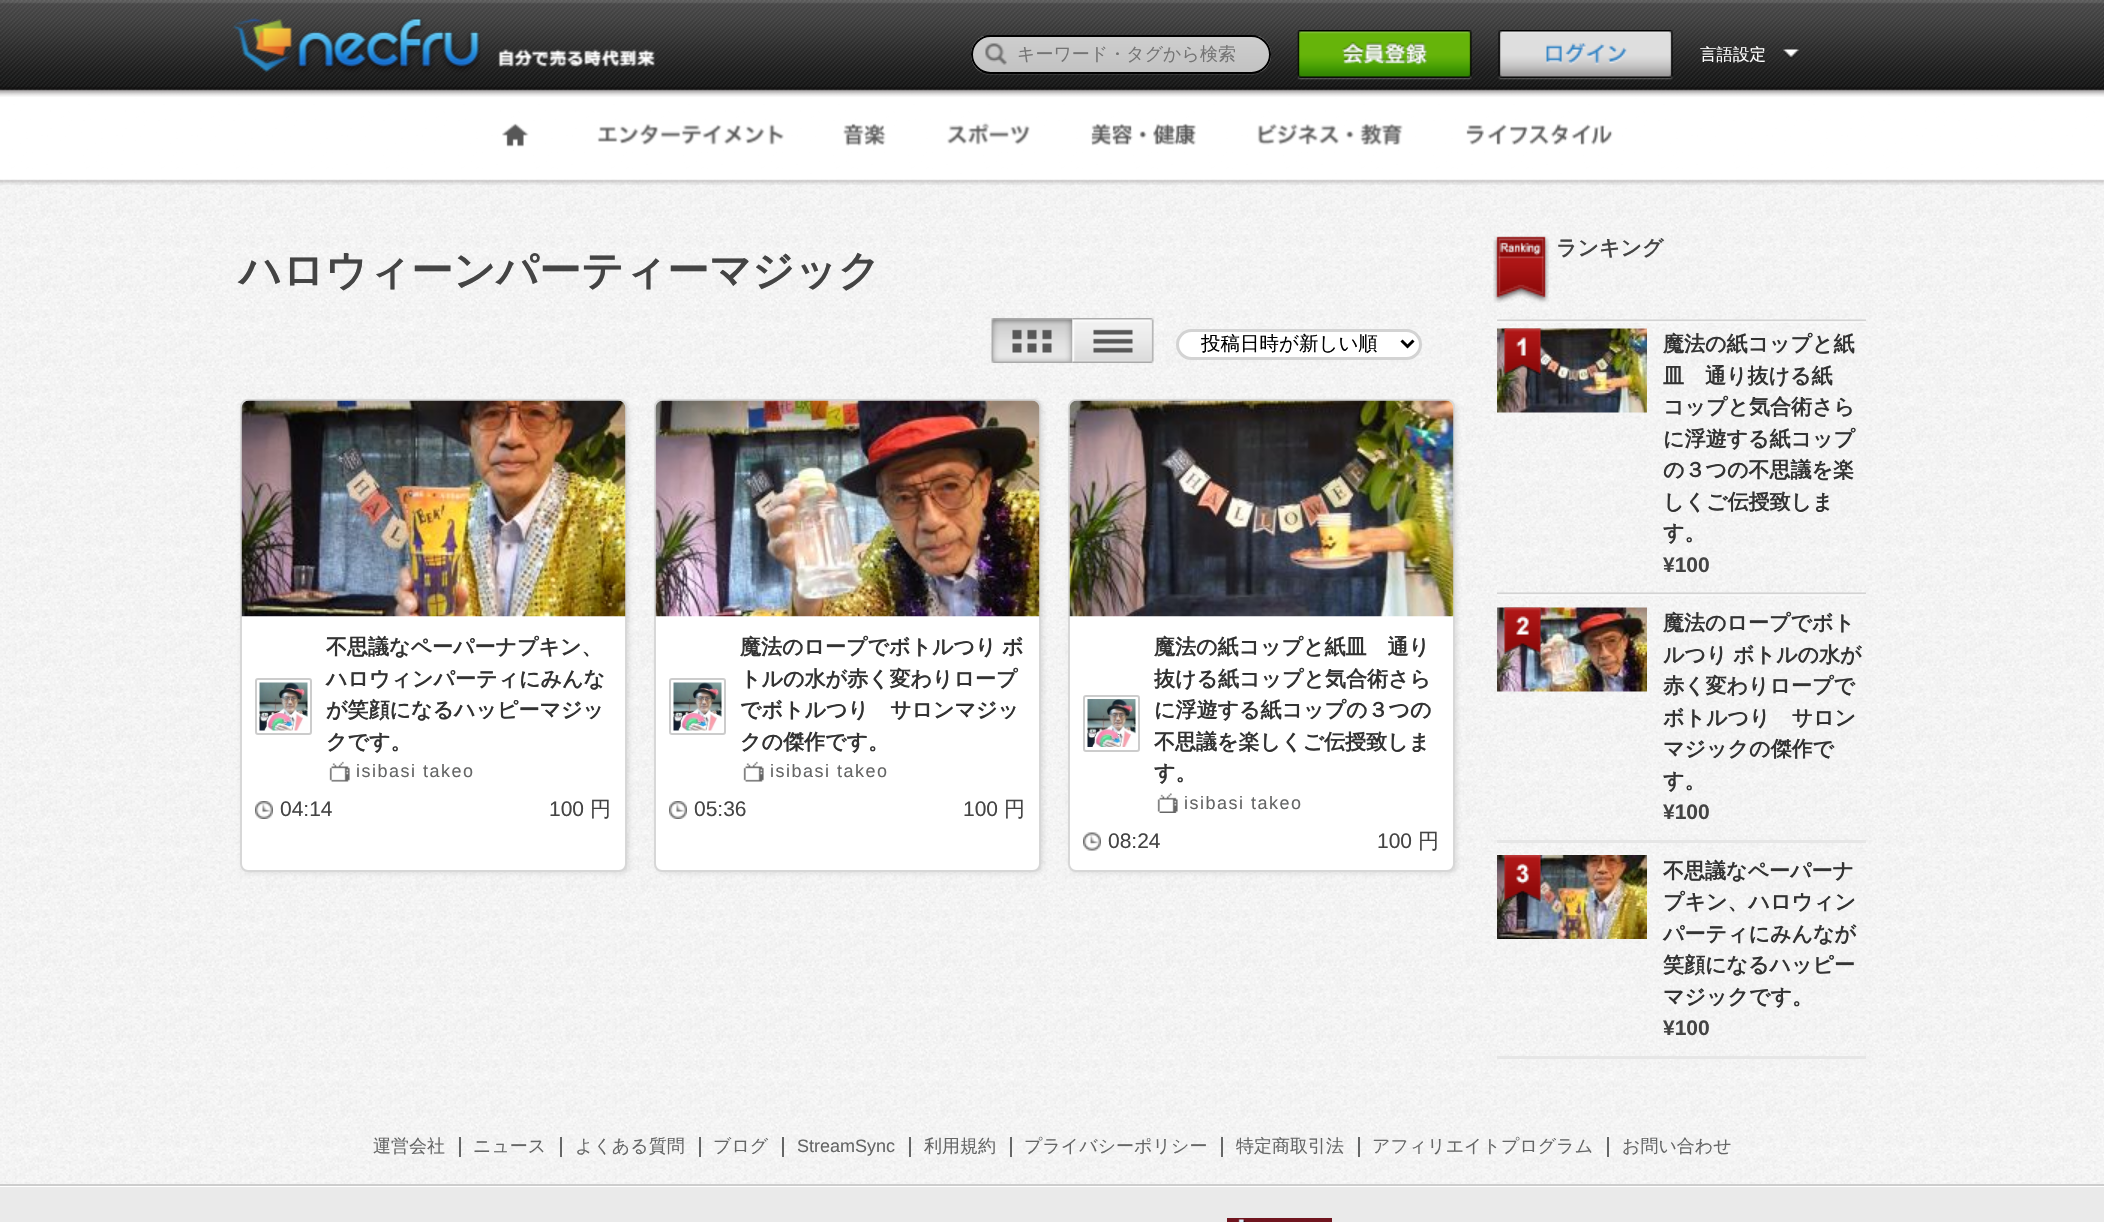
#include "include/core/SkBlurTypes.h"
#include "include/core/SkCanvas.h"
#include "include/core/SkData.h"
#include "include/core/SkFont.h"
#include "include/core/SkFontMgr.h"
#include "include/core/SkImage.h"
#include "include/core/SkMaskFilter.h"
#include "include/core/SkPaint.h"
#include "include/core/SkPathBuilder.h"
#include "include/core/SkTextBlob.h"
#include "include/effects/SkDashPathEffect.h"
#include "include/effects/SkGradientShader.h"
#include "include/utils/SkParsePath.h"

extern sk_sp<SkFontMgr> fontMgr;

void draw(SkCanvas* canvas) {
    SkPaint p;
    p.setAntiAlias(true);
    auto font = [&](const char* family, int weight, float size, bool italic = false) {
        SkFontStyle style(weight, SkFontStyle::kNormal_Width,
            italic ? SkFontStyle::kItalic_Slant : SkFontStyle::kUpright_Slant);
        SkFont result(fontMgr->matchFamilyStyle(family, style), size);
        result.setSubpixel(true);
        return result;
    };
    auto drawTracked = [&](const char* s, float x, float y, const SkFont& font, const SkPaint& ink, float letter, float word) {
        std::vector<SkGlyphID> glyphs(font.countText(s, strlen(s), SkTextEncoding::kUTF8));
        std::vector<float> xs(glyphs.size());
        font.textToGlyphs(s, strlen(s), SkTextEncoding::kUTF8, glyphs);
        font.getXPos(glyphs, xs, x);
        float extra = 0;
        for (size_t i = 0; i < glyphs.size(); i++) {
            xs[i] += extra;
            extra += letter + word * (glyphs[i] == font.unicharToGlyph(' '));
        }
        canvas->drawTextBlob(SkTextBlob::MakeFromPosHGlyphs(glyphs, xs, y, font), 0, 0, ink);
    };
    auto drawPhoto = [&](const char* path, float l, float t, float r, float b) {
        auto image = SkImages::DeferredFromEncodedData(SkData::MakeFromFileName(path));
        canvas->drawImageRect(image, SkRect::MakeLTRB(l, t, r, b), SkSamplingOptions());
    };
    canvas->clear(0xFFEAEAEA);
    drawPhoto("media/15.png", 0, 89, 2104, 1184);
    drawPhoto("media/7.png", 0, 90, 2104, 185);
    drawPhoto("media/1.png", 0, 0, 2104, 97);
    drawPhoto("media/2.png", 233, 17, 655, 73);
    p.setColor(0x1AFFFFFF);
    canvas->drawPath(SkPathBuilder().moveTo(972, 61).cubicTo(974, 69, 982, 75, 990, 75).lineTo(1252, 75).cubicTo(1262, 75, 1271, 66, 1271, 56).cubicTo(1271, 53, 1271, 51, 1270, 49).lineTo(1270, 54).cubicTo(1270, 65, 1262, 74, 1251, 74).lineTo(990, 74).cubicTo(982, 74, 975, 68, 972, 61).close().detach(), p);
    canvas->save();
    canvas->clipPath(SkPathBuilder().moveTo(990.5f, 35).lineTo(1251.5f, 35).cubicTo(1262.5f, 35, 1271, 43.5f, 1271, 54.5f).cubicTo(1271, 65.5f, 1262.5f, 74, 1251.5f, 74).lineTo(990.5f, 74).cubicTo(979.5f, 74, 971, 65.5f, 971, 54.5f).cubicTo(971, 43.5f, 979.5f, 35, 990.5f, 35).close().detach(), true);
    {
        const SkColor colors[] = {0xFFC2C2C2, 0xFFCECECE};
        const float stops[] = {0, 1};
        const SkPoint ends[] = {{972, 72}, {972, 36}};
        p.setShader(SkGradientShader::MakeLinear(ends, colors, stops, 2, SkTileMode::kClamp));
        p.setAlpha(255);
    }
    canvas->drawRect(SkRect::MakeLTRB(971, 36, 1271, 72), p);
    canvas->restore();
    p.setStyle(SkPaint::kStroke_Style);
    p.setStrokeWidth(2);
    p.setShader(nullptr);
    p.setColor(0xFF000000);
    canvas->drawRoundRect(SkRect::MakeLTRB(972, 36, 1270, 73), 18.5f, 18.5f, p);
    drawPhoto("media/3.png", 985, 43, 1007, 65);
    auto font1 = font("WenQuanYi Zen Hei", 500, 18);
    p.setStyle(SkPaint::kFill_Style);
    p.setColor(0xFF757575);
    canvas->drawString("キーワード・タグから検索", 1017, 60, font1, p);
    drawPhoto("media/4.png", 1297, 30, 1472, 80);
    drawPhoto("media/5.png", 1498, 30, 1673, 80);
    drawPhoto("media/6.png", 1783, 49, 1799, 59);
    auto font2 = font("WenQuanYi Zen Hei", 500, 16.5f);
    p.setColor(0xFFFFFFFF);
    canvas->drawString("言語設定", 1700, 60, font2, p);
    drawPhoto("media/8.png", 502, 123, 529, 147);
    drawPhoto("media/9.png", 597, 123, 784, 145);
    drawPhoto("media/10.png", 843, 123, 886, 146);
    drawPhoto("media/11.png", 947, 122, 1030, 145);
    drawPhoto("media/12.png", 1091, 123, 1196, 146);
    drawPhoto("media/13.png", 1257, 123, 1403, 146);
    drawPhoto("media/14.png", 1466, 123, 1613, 145);
    p.setColor(0xFFCDCDCD);
    canvas->drawRect(SkRect::MakeLTRB(0, 1184, 2104, 1186), p);
    auto font3 = font("WenQuanYi Zen Hei", 700, 42);
    p.setColor(0xFF444444);
    canvas->drawString("ハロウィーンパーティーマジック", 239, 285, font3, p);
    drawPhoto("media/16.png", 991, 318, 1073, 363);
    drawPhoto("media/17.png", 1072, 318, 1154, 363);
    p.setColor(0xFFFFFFFF);
    canvas->drawRoundRect(SkRect::MakeLTRB(1177.5f, 330.5f, 1420.5f, 358.5f), 14, 14, p);
    p.setStyle(SkPaint::kStroke_Style);
    p.setStrokeWidth(3);
    p.setColor(0xFFD3D3D3);
    canvas->drawRoundRect(SkRect::MakeLTRB(1177.5f, 330.5f, 1420.5f, 358.5f), 14, 14, p);
    p.setColor(0xFF000000);
    canvas->drawPath(SkPathBuilder().moveTo(1401.5f, 340.5f).lineTo(1407.5f, 346.5f).lineTo(1413.5f, 340.5f).detach(), p);
    auto font4 = font("WenQuanYi Zen Hei", 500, 19.5f);
    p.setStyle(SkPaint::kFill_Style);
    canvas->drawString("投稿日時が新しい順", 1201, 350, font4, p);
    p.setColor(0x1A000000);
    p.setMaskFilter(SkMaskFilter::MakeBlur(kNormal_SkBlurStyle, 2));
    canvas->drawRoundRect(SkRect::MakeLTRB(242, 401, 629, 873), 8, 8, p);
    p.setMaskFilter(nullptr);
    p.setColor(0xFFFFFFFF);
    canvas->drawRoundRect(SkRect::MakeLTRB(241, 400, 626, 871), 7, 7, p);
    p.setStyle(SkPaint::kStroke_Style);
    p.setStrokeWidth(2);
    p.setColor(0xFFD7D7D7);
    canvas->drawRoundRect(SkRect::MakeLTRB(241, 400, 626, 871), 7, 7, p);
    drawPhoto("media/18.png", 241, 400, 626, 617);
    p.setColor(0xFFCCCCCC);
    canvas->drawRoundRect(SkRect::MakeLTRB(256, 679, 311, 734), 2, 2, p);
    drawPhoto("media/19.png", 259, 682, 308, 731);
    auto font5 = font("WenQuanYi Zen Hei", 700, 21);
    p.setStyle(SkPaint::kFill_Style);
    p.setColor(0xFF333333);
    {
        const struct { const char* s; float x, y; } items[] = {
            {"不思議なペーパーナプキン、", 326, 654},
            {"ハロウィンパーティにみんな", 326, 686},
            {"が笑顔になるハッピーマジッ", 326, 717},
            {"クです。", 326, 749},
        };
        for (auto [s, x, y] : items) {
            canvas->drawString(s, x, y, font5, p);
        }
    }
    drawPhoto("media/20.png", 329, 761, 350, 782);
    auto font6 = font("Liberation Sans", 400, 18);
    p.setColor(0xFF656666);
    drawTracked("isibasi takeo", 356, 777, font6, p, 1.5f, 0);
    drawPhoto("media/21.png", 255, 801, 273, 819);
    auto font7 = font("Liberation Sans", 400, 21);
    p.setColor(0xFF444444);
    canvas->drawString("04:14", 280, 816, font7, p);
    canvas->drawString("100", 549, 816, font7, p);
    auto font8 = font("WenQuanYi Zen Hei", 500, 21);
    canvas->drawString("円", 590, 816, font8, p);
    p.setColor(0x1A000000);
    p.setMaskFilter(SkMaskFilter::MakeBlur(kNormal_SkBlurStyle, 2));
    canvas->drawRoundRect(SkRect::MakeLTRB(656, 401, 1043, 873), 8, 8, p);
    p.setMaskFilter(nullptr);
    p.setColor(0xFFFFFFFF);
    canvas->drawRoundRect(SkRect::MakeLTRB(655, 400, 1040, 871), 7, 7, p);
    p.setStyle(SkPaint::kStroke_Style);
    p.setColor(0xFFD7D7D7);
    canvas->drawRoundRect(SkRect::MakeLTRB(655, 400, 1040, 871), 7, 7, p);
    drawPhoto("media/22.png", 655, 400, 1040, 617);
    p.setColor(0xFFCCCCCC);
    canvas->drawRoundRect(SkRect::MakeLTRB(670, 679, 725, 734), 2, 2, p);
    drawPhoto("media/19.png", 673, 682, 722, 731);
    p.setStyle(SkPaint::kFill_Style);
    p.setColor(0xFF333333);
    {
        const struct { const char* s; float x, y; } items[] = {
            {"魔法のロープでボトルつり", 740, 654},
            {"ボ", 1002, 654},
            {"トルの水が赤く変わりロープ", 740, 686},
            {"でボトルつり　サロンマジッ", 740, 717},
            {"クの傑作です。", 740, 749},
        };
        for (auto [s, x, y] : items) {
            canvas->drawString(s, x, y, font5, p);
        }
    }
    drawPhoto("media/20.png", 743, 761, 764, 782);
    p.setColor(0xFF656666);
    drawTracked("isibasi takeo", 770, 777, font6, p, 1.5f, 0);
    drawPhoto("media/21.png", 669, 801, 687, 819);
    p.setColor(0xFF444444);
    canvas->drawString("05:36", 694, 816, font7, p);
    canvas->drawString("100", 963, 816, font7, p);
    canvas->drawString("円", 1004, 816, font8, p);
    p.setColor(0x1A000000);
    p.setMaskFilter(SkMaskFilter::MakeBlur(kNormal_SkBlurStyle, 2));
    canvas->drawRoundRect(SkRect::MakeLTRB(1070, 401, 1457, 873), 8, 8, p);
    p.setMaskFilter(nullptr);
    p.setColor(0xFFFFFFFF);
    canvas->drawRoundRect(SkRect::MakeLTRB(1069, 400, 1454, 871), 7, 7, p);
    p.setStyle(SkPaint::kStroke_Style);
    p.setColor(0xFFD7D7D7);
    canvas->drawRoundRect(SkRect::MakeLTRB(1069, 400, 1454, 871), 7, 7, p);
    drawPhoto("media/23.png", 1069, 400, 1454, 617);
    p.setColor(0xFFCCCCCC);
    canvas->drawRoundRect(SkRect::MakeLTRB(1084, 696, 1139, 751), 2, 2, p);
    drawPhoto("media/24.png", 1087, 699, 1136, 747);
    p.setStyle(SkPaint::kFill_Style);
    p.setColor(0xFF333333);
    {
        const struct { const char* s; float x, y; } items[] = {
            {"魔法の紙コップと紙皿　通り", 1154, 654},
            {"抜ける紙コップと気合術さら", 1154, 686},
            {"に浮遊する紙コップの３つの", 1154, 717},
            {"不思議を楽しくご伝授致しま", 1154, 749},
            {"す。", 1154, 780},
        };
        for (auto [s, x, y] : items) {
            canvas->drawString(s, x, y, font5, p);
        }
    }
    drawPhoto("media/25.png", 1157, 793, 1178, 813);
    p.setColor(0xFF656666);
    drawTracked("isibasi takeo", 1184, 809, font6, p, 1.5f, 0);
    drawPhoto("media/26.png", 1083, 832, 1101, 851);
    p.setColor(0xFF444444);
    canvas->drawString("08:24", 1108, 848, font7, p);
    canvas->drawString("100", 1377, 848, font7, p);
    canvas->drawString("円", 1418, 848, font8, p);
    drawPhoto("media/27.png", 1493, 236, 1549, 303);
    canvas->drawString("ランキング", 1556, 255, font5, p);
    drawPhoto("media/28.png", 1497, 319, 1866, 323);
    drawPhoto("media/29.png", 1497, 592, 1866, 596);
    drawPhoto("media/30.png", 1497, 328, 1647, 413);
    drawPhoto("media/31.png", 1504, 328, 1541, 375);
    p.setColor(0xFF333333);
    {
        const struct { const char* s; float x, y; } items[] = {
            {"魔法の紙コップと紙", 1663, 351},
            {"皿　通り抜ける紙", 1663, 383},
            {"コップと気合術さら", 1663, 414},
            {"に浮遊する紙コップ", 1663, 446},
            {"の３つの不思議を楽", 1663, 477},
            {"しくご伝授致しま", 1663, 509},
            {"す。", 1663, 540},
        };
        for (auto [s, x, y] : items) {
            canvas->drawString(s, x, y, font5, p);
        }
    }
    auto font9 = font("Liberation Sans", 700, 21);
    p.setColor(0xFF444444);
    canvas->drawString("¥100", 1663, 572, font9, p);
    p.setColor(0xFFE6E6E6);
    canvas->drawRect(SkRect::MakeLTRB(1497, 840, 1866, 843), p);
    drawPhoto("media/32.png", 1497, 607, 1647, 692);
    drawPhoto("media/33.png", 1504, 607, 1541, 654);
    p.setColor(0xFF333333);
    {
        const struct { const char* s; float x, y; } items[] = {
            {"魔法のロープでボト", 1663, 630},
            {"ルつり", 1663, 662},
            {"ボトルの水が", 1733, 662},
            {"赤く変わりロープで", 1663, 693},
            {"ボトルつり　サロン", 1663, 725},
            {"マジックの傑作で", 1663, 756},
            {"す。", 1663, 788},
        };
        for (auto [s, x, y] : items) {
            canvas->drawString(s, x, y, font5, p);
        }
    }
    p.setColor(0xFF444444);
    canvas->drawString("¥100", 1663, 819, font9, p);
    p.setColor(0xFFE6E6E6);
    canvas->drawRect(SkRect::MakeLTRB(1497, 1056, 1866, 1059), p);
    drawPhoto("media/34.png", 1497, 855, 1647, 939);
    drawPhoto("media/35.png", 1504, 855, 1541, 902);
    p.setColor(0xFF333333);
    {
        const struct { const char* s; float x, y; } items[] = {
            {"不思議なペーパーナ", 1663, 878},
            {"プキン、ハロウィン", 1663, 909},
            {"パーティにみんなが", 1663, 941},
            {"笑顔になるハッピー", 1663, 972},
            {"マジックです。", 1663, 1004},
        };
        for (auto [s, x, y] : items) {
            canvas->drawString(s, x, y, font5, p);
        }
    }
    p.setColor(0xFF444444);
    canvas->drawString("¥100", 1663, 1035, font9, p);
    p.setColor(0xFF656666);
    canvas->drawString("運営会社", 373, 1152, font1, p);
    canvas->drawRect(SkRect::MakeLTRB(459, 1137, 461, 1157), p);
    canvas->drawString("ニュース", 473, 1152, font1, p);
    canvas->drawRect(SkRect::MakeLTRB(560, 1137, 562, 1157), p);
    canvas->drawString("よくある質問", 575, 1152, font1, p);
    canvas->drawRect(SkRect::MakeLTRB(699, 1137, 701, 1157), p);
    canvas->drawString("ブログ", 713, 1152, font1, p);
    canvas->drawRect(SkRect::MakeLTRB(782, 1137, 784, 1157), p);
    canvas->drawString("StreamSync", 797, 1152, font6, p);
    canvas->drawRect(SkRect::MakeLTRB(909, 1137, 911, 1157), p);
    canvas->drawString("利用規約", 924, 1152, font1, p);
    canvas->drawRect(SkRect::MakeLTRB(1010, 1137, 1012, 1157), p);
    canvas->drawString("プライバシーポリシー", 1024, 1152, font1, p);
    canvas->drawRect(SkRect::MakeLTRB(1221, 1137, 1223, 1157), p);
    canvas->drawString("特定商取引法", 1236, 1152, font1, p);
    canvas->drawRect(SkRect::MakeLTRB(1358, 1137, 1360, 1157), p);
    canvas->drawString("アフィリエイトプログラム", 1372, 1152, font1, p);
    canvas->drawRect(SkRect::MakeLTRB(1607, 1137, 1609, 1157), p);
    canvas->drawString("お問い合わせ", 1622, 1152, font1, p);
    p.setColor(0xFFFFFFFF);
    canvas->drawRect(SkRect::MakeLTRB(0, 1186, 2104, 1187), p);
    drawPhoto("media/36.png", 1227, 1218, 1332, 1222);
}
